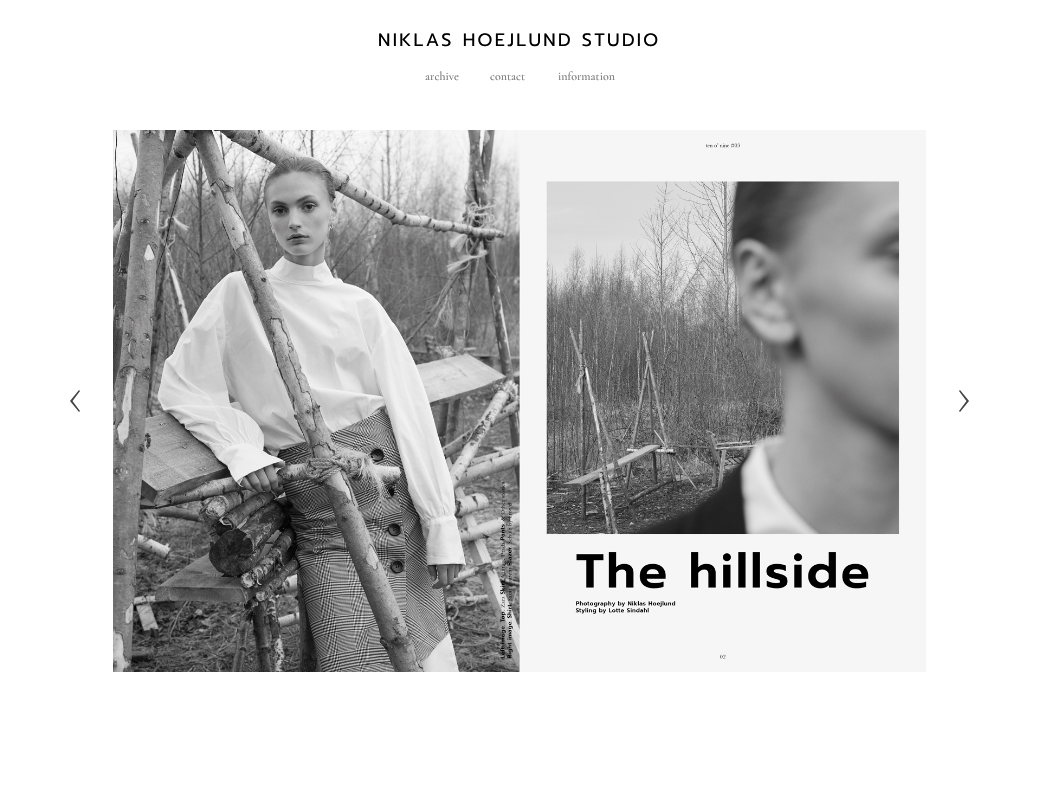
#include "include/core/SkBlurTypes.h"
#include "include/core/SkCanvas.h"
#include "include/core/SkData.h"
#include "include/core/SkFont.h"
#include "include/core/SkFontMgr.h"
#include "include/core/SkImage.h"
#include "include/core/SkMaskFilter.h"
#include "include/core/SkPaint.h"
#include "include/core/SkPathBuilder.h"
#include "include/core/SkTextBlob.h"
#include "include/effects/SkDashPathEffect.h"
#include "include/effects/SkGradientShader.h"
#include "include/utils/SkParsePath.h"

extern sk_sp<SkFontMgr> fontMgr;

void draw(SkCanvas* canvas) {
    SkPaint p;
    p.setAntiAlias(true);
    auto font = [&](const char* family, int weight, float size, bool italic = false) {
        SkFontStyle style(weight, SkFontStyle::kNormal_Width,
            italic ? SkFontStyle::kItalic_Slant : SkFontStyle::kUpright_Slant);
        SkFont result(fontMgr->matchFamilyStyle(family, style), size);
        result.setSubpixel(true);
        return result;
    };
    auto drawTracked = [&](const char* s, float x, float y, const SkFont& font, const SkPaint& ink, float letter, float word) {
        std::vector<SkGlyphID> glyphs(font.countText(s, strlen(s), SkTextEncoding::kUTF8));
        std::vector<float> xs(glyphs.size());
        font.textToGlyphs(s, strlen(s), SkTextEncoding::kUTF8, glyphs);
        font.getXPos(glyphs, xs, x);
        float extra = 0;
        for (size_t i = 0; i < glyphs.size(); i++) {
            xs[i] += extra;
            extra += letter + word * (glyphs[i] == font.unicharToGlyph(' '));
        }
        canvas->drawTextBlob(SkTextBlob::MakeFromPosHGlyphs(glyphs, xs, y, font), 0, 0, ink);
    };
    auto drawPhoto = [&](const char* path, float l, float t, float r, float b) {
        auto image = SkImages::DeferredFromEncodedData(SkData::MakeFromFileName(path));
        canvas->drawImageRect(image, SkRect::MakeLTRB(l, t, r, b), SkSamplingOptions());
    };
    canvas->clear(0xFFFFFFFF);
    auto font1 = font("Prompt", 400, 18);
    p.setColor(0xFF000000);
    drawTracked("NIKLAS HOEJLUND STUDIO", 378, 46, font1, p, 2.3f, 0);
    auto font2 = font("Cormorant Garamond", 300, 12);
    p.setColor(0xFF777777);
    {
        const struct { const char* s; float x, y; } items[] = {
            {"archive", 425, 80},
            {"contact", 490, 80},
            {"information", 558, 80},
        };
        for (auto [s, x, y] : items) {
            canvas->drawString(s, x, y, font2, p);
        }
    }
    p.setColor(0xFF424242);
    canvas->drawPath(SkPathBuilder().moveTo(79, 412).lineTo(70, 401).lineTo(79, 390).lineTo(80, 391).lineTo(72.5f, 401).lineTo(80, 411).close().detach(), p);
    drawPhoto("media/1.png", 113, 130, 926, 672);
    canvas->drawPath(SkPathBuilder().moveTo(960, 390).lineTo(969, 401).lineTo(960, 412).lineTo(959, 411).lineTo(966.5f, 401).lineTo(959, 391).close().detach(), p);
}
